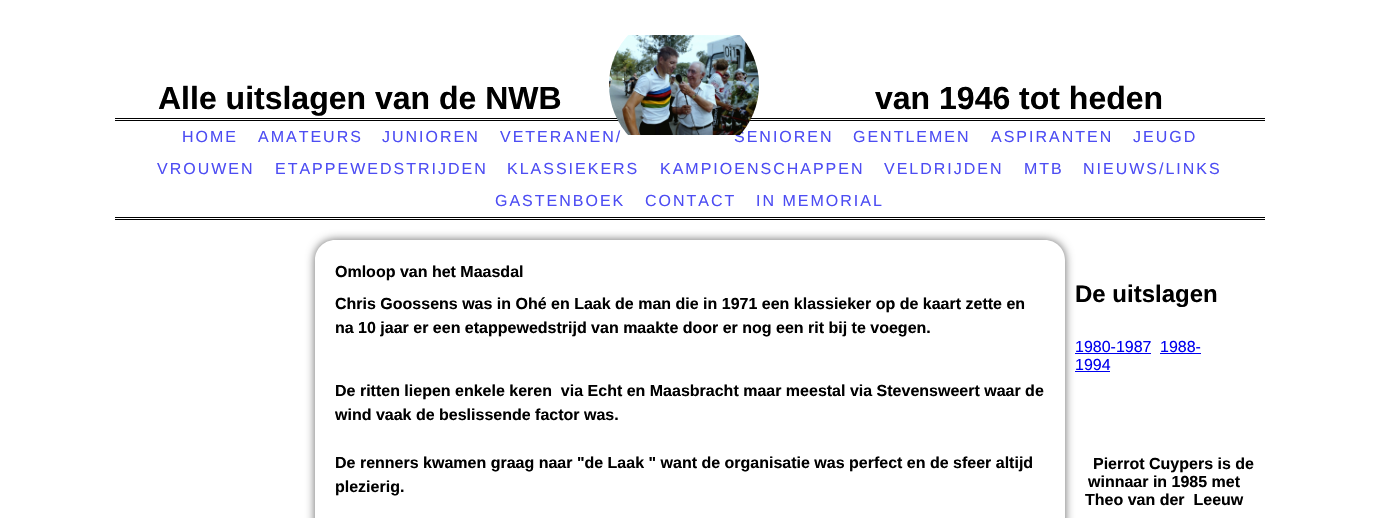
#include "include/core/SkBlurTypes.h"
#include "include/core/SkCanvas.h"
#include "include/core/SkData.h"
#include "include/core/SkFont.h"
#include "include/core/SkFontMgr.h"
#include "include/core/SkImage.h"
#include "include/core/SkMaskFilter.h"
#include "include/core/SkPaint.h"
#include "include/core/SkPathBuilder.h"
#include "include/core/SkTextBlob.h"
#include "include/effects/SkDashPathEffect.h"
#include "include/effects/SkGradientShader.h"
#include "include/utils/SkParsePath.h"

extern sk_sp<SkFontMgr> fontMgr;

void draw(SkCanvas* canvas) {
    SkPaint p;
    p.setAntiAlias(true);
    auto font = [&](const char* family, int weight, float size, bool italic = false) {
        SkFontStyle style(weight, SkFontStyle::kNormal_Width,
            italic ? SkFontStyle::kItalic_Slant : SkFontStyle::kUpright_Slant);
        SkFont result(fontMgr->matchFamilyStyle(family, style), size);
        result.setSubpixel(true);
        return result;
    };
    auto drawTracked = [&](const char* s, float x, float y, const SkFont& font, const SkPaint& ink, float letter, float word) {
        std::vector<SkGlyphID> glyphs(font.countText(s, strlen(s), SkTextEncoding::kUTF8));
        std::vector<float> xs(glyphs.size());
        font.textToGlyphs(s, strlen(s), SkTextEncoding::kUTF8, glyphs);
        font.getXPos(glyphs, xs, x);
        float extra = 0;
        for (size_t i = 0; i < glyphs.size(); i++) {
            xs[i] += extra;
            extra += letter + word * (glyphs[i] == font.unicharToGlyph(' '));
        }
        canvas->drawTextBlob(SkTextBlob::MakeFromPosHGlyphs(glyphs, xs, y, font), 0, 0, ink);
    };
    auto drawPhoto = [&](const char* path, float l, float t, float r, float b) {
        auto image = SkImages::DeferredFromEncodedData(SkData::MakeFromFileName(path));
        canvas->drawImageRect(image, SkRect::MakeLTRB(l, t, r, b), SkSamplingOptions());
    };
    canvas->clear(0xFFFFFFFF);
    p.setColor(0xFF000000);
    canvas->drawRect(SkRect::MakeLTRB(115, 118, 1265, 119), p);
    canvas->drawRect(SkRect::MakeLTRB(115, 120, 1265, 121), p);
    auto font1 = font("Liberation Sans", 400, 16);
    p.setColor(0xFF4D4DF3);
    drawTracked("VETERANEN/", 500, 142, font1, p, 2, 0);
    drawTracked("SENIOREN", 734, 142, font1, p, 2, 0);
    drawPhoto("media/1.png", 609, 35, 759, 135);
    auto font2 = font("Liberation Sans", 700, 32);
    p.setColor(0xFF000000);
    canvas->drawString("Alle uitslagen van de NWB", 158, 109, font2, p);
    canvas->drawString("van 1946 tot heden", 875, 109, font2, p);
    canvas->drawRect(SkRect::MakeLTRB(115, 217, 1265, 218), p);
    canvas->drawRect(SkRect::MakeLTRB(115, 219, 1265, 220), p);
    p.setColor(0xFF4D4DF3);
    {
        const struct { const char* s; float x, y; } items[] = {
            {"HOME", 182, 142},
            {"AMATEURS", 258, 142},
            {"JUNIOREN", 382, 142},
            {"GENTLEMEN", 853, 142},
            {"ASPIRANTEN", 991, 142},
            {"JEUGD", 1133, 142},
            {"VROUWEN", 157, 174},
            {"ETAPPEWEDSTRIJDEN", 275, 174},
            {"KLASSIEKERS", 507, 174},
            {"KAMPIOENSCHAPPEN", 660, 174},
            {"VELDRIJDEN", 884, 174},
            {"MTB", 1024, 174},
            {"NIEUWS/LINKS", 1083, 174},
            {"GASTENBOEK", 495, 206},
            {"CONTACT", 645, 206},
            {"IN MEMORIAL", 756, 206},
        };
        for (auto [s, x, y] : items) {
            drawTracked(s, x, y, font1, p, 2, 0);
        }
    }
    p.setColor(0xFF0000EE);
    canvas->drawRect(SkRect::MakeLTRB(1075, 353, 1151, 354), p);
    canvas->drawRect(SkRect::MakeLTRB(1075, 371, 1110, 372), p);
    canvas->save();
    canvas->clipPath(SkPathBuilder(SkPathFillType::kEvenOdd).moveTo(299, 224).lineTo(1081, 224).lineTo(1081, 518).lineTo(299, 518).close().moveTo(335, 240).lineTo(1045, 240).cubicTo(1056, 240, 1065, 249, 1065, 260).lineTo(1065, 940).cubicTo(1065, 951, 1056, 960, 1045, 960).lineTo(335, 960).cubicTo(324, 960, 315, 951, 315, 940).lineTo(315, 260).cubicTo(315, 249, 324, 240, 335, 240).close().detach(), true);
    p.setColor(0xFF666666);
    p.setMaskFilter(SkMaskFilter::MakeBlur(kNormal_SkBlurStyle, 5));
    canvas->drawRoundRect(SkRect::MakeLTRB(315, 240, 1065, 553), 20, 20, p);
    p.setMaskFilter(nullptr);
    canvas->restore();
    auto font3 = font("Liberation Sans", 700, 16);
    p.setColor(0xFF000000);
    {
        const struct { const char* s; float x, y; } items[] = {
            {"Omloop van het Maasdal", 335, 277},
            {"Chris Goossens was in Ohé en Laak de man die in 1971 een klassieker op de kaart zette en", 335, 309},
            {"na 10 jaar er een etappewedstrijd van maakte door er nog een rit bij te voegen.", 335, 333},
            {"De ritten liepen enkele keren  via Echt en Maasbracht maar meestal via Stevensweert waar de", 335, 396},
            {"wind vaak de beslissende factor was.", 335, 420},
            {"De renners kwamen graag naar \"de Laak \" want de organisatie was perfect en de sfeer altijd", 335, 468},
            {"plezierig.", 335, 492},
        };
        for (auto [s, x, y] : items) {
            canvas->drawString(s, x, y, font3, p);
        }
    }
    auto font4 = font("Liberation Sans", 700, 24);
    canvas->drawString("De uitslagen", 1075, 302, font4, p);
    p.setColor(0xFF0000EE);
    canvas->drawString("1980-1987", 1075, 352, font1, p);
    canvas->drawString("1988-", 1160, 352, font1, p);
    canvas->drawRect(SkRect::MakeLTRB(1160, 353, 1201, 354), p);
    canvas->drawString("1994", 1075, 370, font1, p);
    p.setColor(0xFF000000);
    {
        const struct { const char* s; float x, y; } items[] = {
            {"Pierrot Cuypers is de", 1093, 469},
            {"winnaar in 1985 met", 1088, 487},
            {"Theo van der  Leeuw", 1085, 505},
        };
        for (auto [s, x, y] : items) {
            canvas->drawString(s, x, y, font3, p);
        }
    }
}
